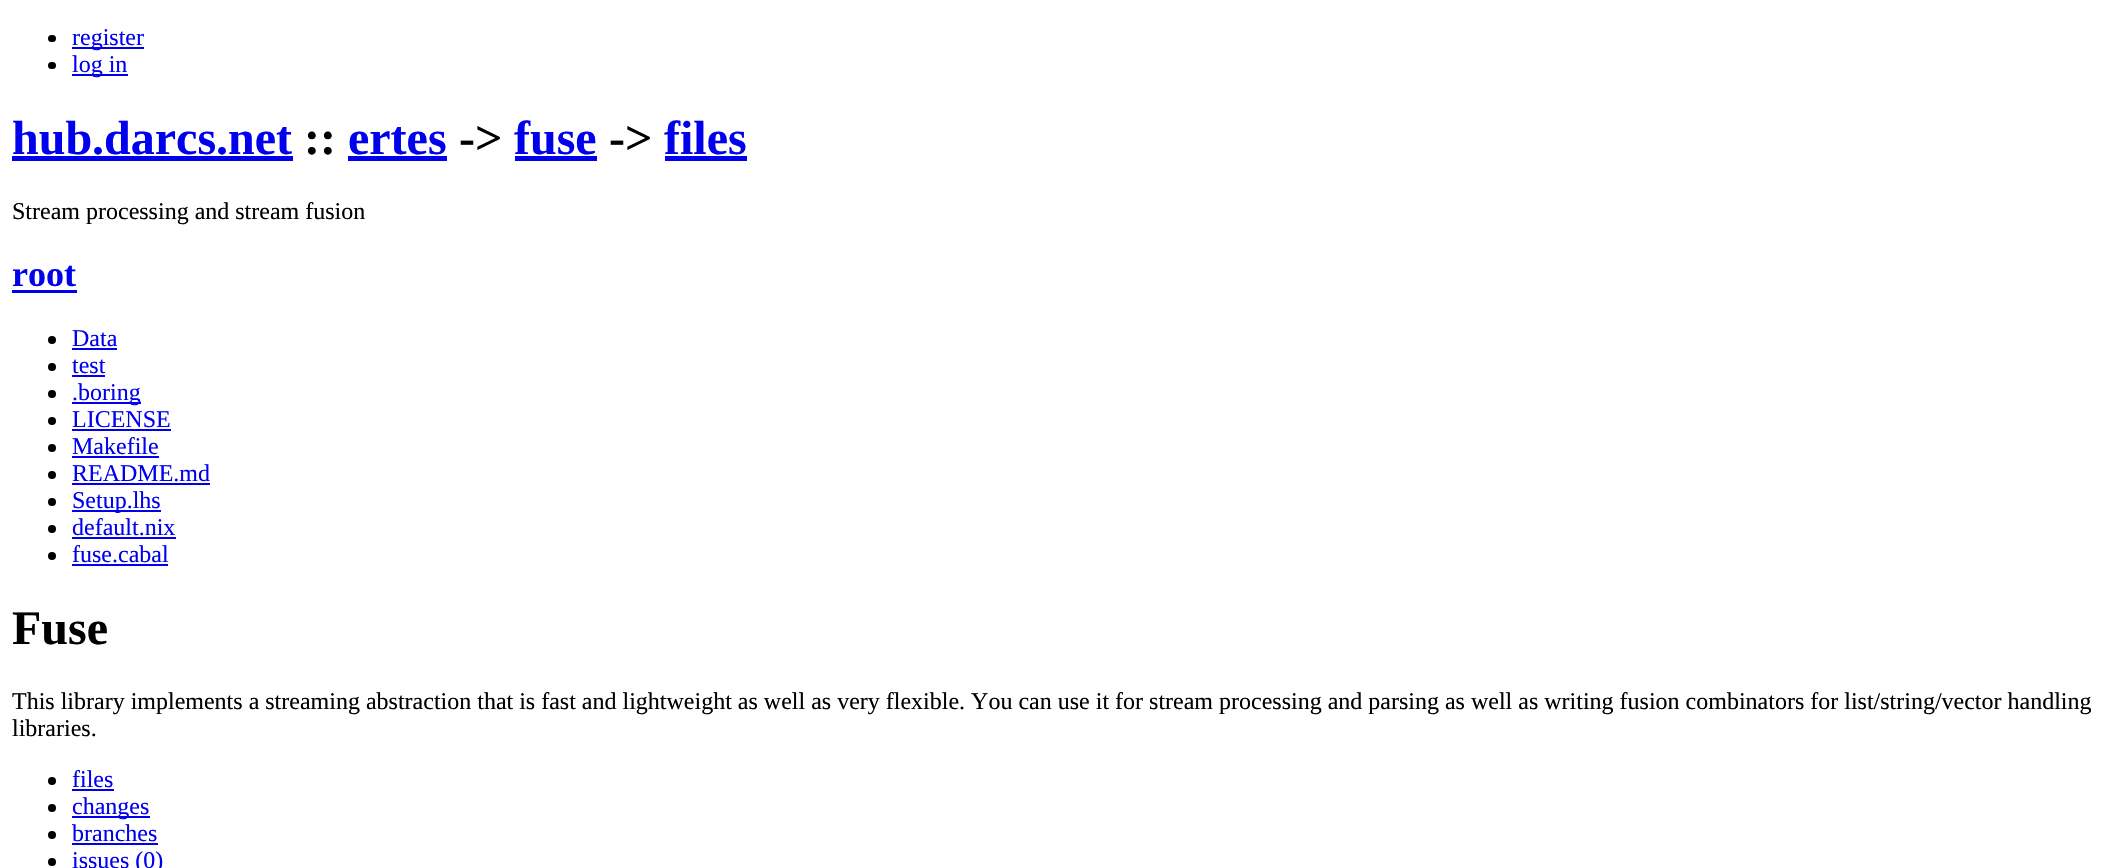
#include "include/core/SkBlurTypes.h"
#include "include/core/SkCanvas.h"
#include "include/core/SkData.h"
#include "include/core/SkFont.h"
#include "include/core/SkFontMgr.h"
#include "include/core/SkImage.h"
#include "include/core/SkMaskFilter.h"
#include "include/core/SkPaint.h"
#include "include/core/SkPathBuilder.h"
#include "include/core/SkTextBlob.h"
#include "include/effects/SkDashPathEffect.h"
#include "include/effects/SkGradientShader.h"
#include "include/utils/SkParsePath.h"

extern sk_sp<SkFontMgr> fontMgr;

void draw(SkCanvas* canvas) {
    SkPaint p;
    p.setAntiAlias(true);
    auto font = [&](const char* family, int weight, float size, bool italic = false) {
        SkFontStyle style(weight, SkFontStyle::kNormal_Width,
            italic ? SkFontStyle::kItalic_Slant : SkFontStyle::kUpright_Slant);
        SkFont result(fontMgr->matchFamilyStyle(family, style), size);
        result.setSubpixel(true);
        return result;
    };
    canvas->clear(0xFFFFFFFF);
    p.setColor(0xFF000000);
    canvas->drawRoundRect(SkRect::MakeLTRB(48, 35, 56, 42), 3.5f, 3.5f, p);
    p.setColor(0xFF0000EE);
    canvas->drawRect(SkRect::MakeLTRB(72, 47, 144, 49), p);
    auto font1 = font("Liberation Serif", 400, 24);
    canvas->drawString("register", 72, 45, font1, p);
    p.setColor(0xFF000000);
    canvas->drawRoundRect(SkRect::MakeLTRB(48, 62, 56, 69), 3.5f, 3.5f, p);
    p.setColor(0xFF0000EE);
    canvas->drawRect(SkRect::MakeLTRB(72, 74, 128, 76), p);
    canvas->drawString("log in", 72, 72, font1, p);
    auto font2 = font("Liberation Serif", 700, 48);
    canvas->drawString("hub.darcs.net", 12, 154, font2, p);
    canvas->drawRect(SkRect::MakeLTRB(12, 156, 293, 161), p);
    p.setColor(0xFF000000);
    canvas->drawString("::", 304, 154, font2, p);
    p.setColor(0xFF0000EE);
    canvas->drawString("ertes", 348, 154, font2, p);
    canvas->drawRect(SkRect::MakeLTRB(348, 156, 447, 161), p);
    p.setColor(0xFF000000);
    canvas->drawString("->", 459, 154, font2, p);
    p.setColor(0xFF0000EE);
    canvas->drawString("fuse", 514, 154, font2, p);
    canvas->drawRect(SkRect::MakeLTRB(515, 156, 597, 161), p);
    p.setColor(0xFF000000);
    canvas->drawString("->", 609, 154, font2, p);
    p.setColor(0xFF0000EE);
    canvas->drawString("files", 664, 154, font2, p);
    canvas->drawRect(SkRect::MakeLTRB(665, 156, 747, 161), p);
    p.setColor(0xFF000000);
    canvas->drawString("Stream processing and stream fusion", 12, 219, font1, p);
    auto font3 = font("Liberation Serif", 700, 36);
    p.setColor(0xFF0000EE);
    canvas->drawString("root", 12, 286, font3, p);
    canvas->drawRect(SkRect::MakeLTRB(12, 290, 77, 293), p);
    p.setColor(0xFF000000);
    canvas->drawCircle(52, 340, 4, p);
    p.setColor(0xFF0000EE);
    canvas->drawString("Data", 72, 346, font1, p);
    canvas->drawRect(SkRect::MakeLTRB(72, 348, 117, 350), p);
    p.setColor(0xFF000000);
    canvas->drawCircle(52, 367, 4, p);
    p.setColor(0xFF0000EE);
    canvas->drawString("test", 72, 373, font1, p);
    canvas->drawRect(SkRect::MakeLTRB(72, 375, 105, 377), p);
    p.setColor(0xFF000000);
    canvas->drawCircle(52, 394, 4, p);
    p.setColor(0xFF0000EE);
    canvas->drawRect(SkRect::MakeLTRB(72, 402, 141, 404), p);
    canvas->drawString(".boring", 72, 400, font1, p);
    p.setColor(0xFF000000);
    canvas->drawCircle(52, 421, 4, p);
    p.setColor(0xFF0000EE);
    canvas->drawString("LICENSE", 72, 427, font1, p);
    canvas->drawRect(SkRect::MakeLTRB(72, 429, 171, 431), p);
    p.setColor(0xFF000000);
    canvas->drawCircle(52, 448, 4, p);
    p.setColor(0xFF0000EE);
    canvas->drawString("Makefile", 72, 454, font1, p);
    canvas->drawRect(SkRect::MakeLTRB(72, 456, 159, 458), p);
    p.setColor(0xFF000000);
    canvas->drawCircle(52, 475, 4, p);
    p.setColor(0xFF0000EE);
    canvas->drawString("README.md", 72, 481, font1, p);
    canvas->drawRect(SkRect::MakeLTRB(72, 483, 210, 485), p);
    p.setColor(0xFF000000);
    canvas->drawCircle(52, 502, 4, p);
    p.setColor(0xFF0000EE);
    canvas->drawRect(SkRect::MakeLTRB(72, 510, 161, 512), p);
    canvas->drawString("Setup.lhs", 72, 508, font1, p);
    p.setColor(0xFF000000);
    canvas->drawCircle(52, 529, 4, p);
    p.setColor(0xFF0000EE);
    canvas->drawString("default.nix", 72, 535, font1, p);
    canvas->drawRect(SkRect::MakeLTRB(72, 537, 176, 539), p);
    p.setColor(0xFF000000);
    canvas->drawCircle(52, 556, 4, p);
    p.setColor(0xFF0000EE);
    canvas->drawString("fuse.cabal", 72, 562, font1, p);
    canvas->drawRect(SkRect::MakeLTRB(72, 564, 168, 566), p);
    p.setColor(0xFF000000);
    canvas->drawString("Fuse", 12, 644, font2, p);
    canvas->drawString("This library implements a streaming abstraction that is fast and lightweight as well as very flexible. You can use it for stream processing and parsing as well as writing fusion combinators for list/string/vector handling", 12, 709, font1, p);
    canvas->drawString("libraries.", 12, 736, font1, p);
    canvas->drawCircle(52, 781, 4, p);
    p.setColor(0xFF0000EE);
    canvas->drawString("files", 72, 787, font1, p);
    canvas->drawRect(SkRect::MakeLTRB(72, 789, 114, 791), p);
    p.setColor(0xFF000000);
    canvas->drawCircle(52, 808, 4, p);
    p.setColor(0xFF0000EE);
    canvas->drawRect(SkRect::MakeLTRB(72, 816, 150, 818), p);
    canvas->drawString("changes", 72, 814, font1, p);
    p.setColor(0xFF000000);
    canvas->drawCircle(52, 835, 4, p);
    p.setColor(0xFF0000EE);
    canvas->drawString("branches", 72, 841, font1, p);
    canvas->drawRect(SkRect::MakeLTRB(72, 843, 158, 845), p);
    p.setColor(0xFF000000);
    canvas->drawCircle(52, 862, 4, p);
    p.setColor(0xFF0000EE);
    canvas->drawString("issues (0)", 72, 868, font1, p);
}
